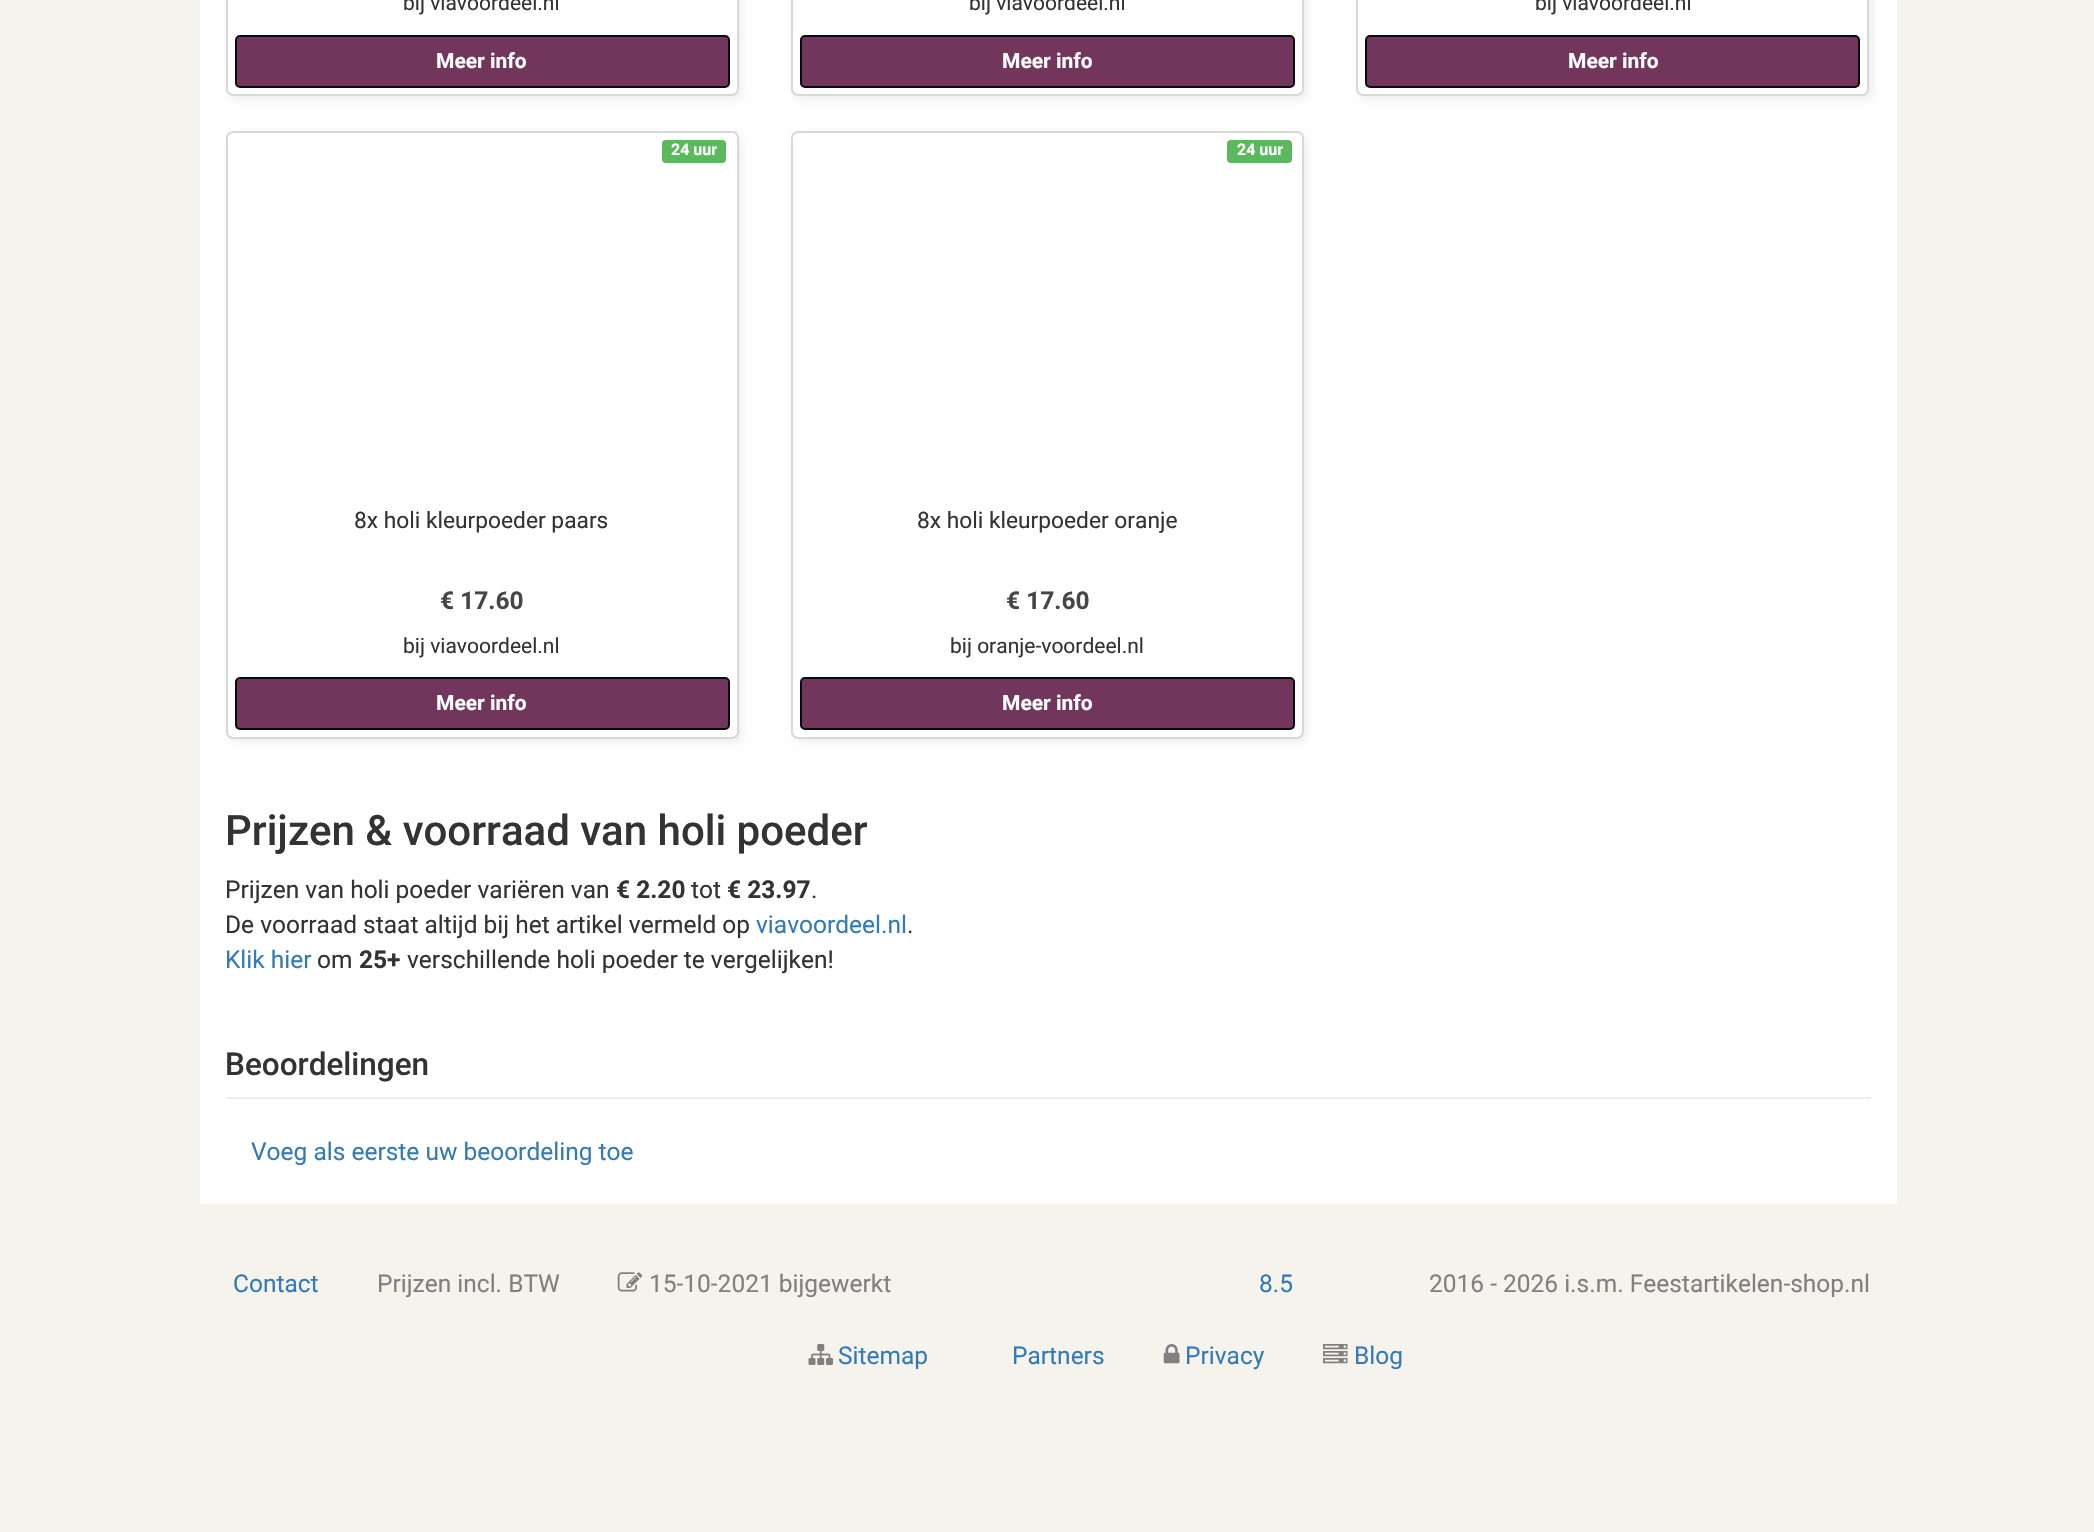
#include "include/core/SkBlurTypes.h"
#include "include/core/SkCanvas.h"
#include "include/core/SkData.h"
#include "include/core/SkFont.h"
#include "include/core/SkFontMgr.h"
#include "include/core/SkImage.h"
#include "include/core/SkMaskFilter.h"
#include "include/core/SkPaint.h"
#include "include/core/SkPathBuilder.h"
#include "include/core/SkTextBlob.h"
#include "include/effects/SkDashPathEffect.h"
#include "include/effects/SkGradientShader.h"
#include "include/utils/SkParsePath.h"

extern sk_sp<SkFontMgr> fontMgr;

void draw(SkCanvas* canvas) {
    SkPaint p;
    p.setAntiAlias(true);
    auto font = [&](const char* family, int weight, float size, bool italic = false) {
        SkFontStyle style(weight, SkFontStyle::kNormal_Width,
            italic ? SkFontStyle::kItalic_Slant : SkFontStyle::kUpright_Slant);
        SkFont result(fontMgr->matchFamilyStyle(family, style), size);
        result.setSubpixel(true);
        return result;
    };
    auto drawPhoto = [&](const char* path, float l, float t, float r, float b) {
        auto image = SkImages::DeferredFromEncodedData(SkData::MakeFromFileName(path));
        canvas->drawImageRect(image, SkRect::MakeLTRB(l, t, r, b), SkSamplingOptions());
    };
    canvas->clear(0xFFF6F3ED);
    p.setColor(0xFFFFFFFF);
    canvas->drawRect(SkRect::MakeLTRB(200, 0, 1897, 1204), p);
    p.setColor(0xFFEEEEEE);
    p.setMaskFilter(SkMaskFilter::MakeBlur(kNormal_SkBlurStyle, 4.5f));
    canvas->drawRoundRect(SkRect::MakeLTRB(229, -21, 742, 100), 7, 7, p);
    p.setMaskFilter(nullptr);
    p.setColor(0xFFFFFFFF);
    canvas->drawRoundRect(SkRect::MakeLTRB(227, -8, 738, 95), 6, 6, p);
    p.setStyle(SkPaint::kStroke_Style);
    p.setStrokeWidth(2);
    p.setColor(0xFFD8D8D8);
    canvas->drawRoundRect(SkRect::MakeLTRB(227, -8, 738, 95), 6, 6, p);
    auto font1 = font("Roboto", 400, 21);
    p.setStyle(SkPaint::kFill_Style);
    p.setColor(0xFF333333);
    canvas->drawString("bij viavoordeel.nl", 403, 10, font1, p);
    p.setColor(0xFF72365D);
    canvas->drawRoundRect(SkRect::MakeLTRB(236, 36, 729, 87), 4, 4, p);
    p.setStyle(SkPaint::kStroke_Style);
    p.setColor(0xFF090A0C);
    canvas->drawRoundRect(SkRect::MakeLTRB(236, 36, 729, 87), 4, 4, p);
    auto font2 = font("Roboto", 700, 21);
    p.setStyle(SkPaint::kFill_Style);
    p.setColor(0xFFFFFFFF);
    canvas->drawString("Meer info", 436, 68, font2, p);
    p.setColor(0xFFEEEEEE);
    p.setMaskFilter(SkMaskFilter::MakeBlur(kNormal_SkBlurStyle, 4.5f));
    canvas->drawRoundRect(SkRect::MakeLTRB(795, -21, 1307, 100), 7, 7, p);
    p.setMaskFilter(nullptr);
    p.setColor(0xFFFFFFFF);
    canvas->drawRoundRect(SkRect::MakeLTRB(792, -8, 1303, 95), 6, 6, p);
    p.setStyle(SkPaint::kStroke_Style);
    p.setColor(0xFFD8D8D8);
    canvas->drawRoundRect(SkRect::MakeLTRB(792, -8, 1303, 95), 6, 6, p);
    p.setStyle(SkPaint::kFill_Style);
    p.setColor(0xFF333333);
    canvas->drawString("bij viavoordeel.nl", 969, 10, font1, p);
    p.setColor(0xFF72365D);
    canvas->drawRoundRect(SkRect::MakeLTRB(801, 36, 1294, 87), 4, 4, p);
    p.setStyle(SkPaint::kStroke_Style);
    p.setColor(0xFF090A0C);
    canvas->drawRoundRect(SkRect::MakeLTRB(801, 36, 1294, 87), 4, 4, p);
    p.setStyle(SkPaint::kFill_Style);
    p.setColor(0xFFFFFFFF);
    canvas->drawString("Meer info", 1002, 68, font2, p);
    p.setColor(0xFFEEEEEE);
    p.setMaskFilter(SkMaskFilter::MakeBlur(kNormal_SkBlurStyle, 4.5f));
    canvas->drawRoundRect(SkRect::MakeLTRB(1360, -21, 1873, 100), 7, 7, p);
    p.setMaskFilter(nullptr);
    p.setColor(0xFFFFFFFF);
    canvas->drawRoundRect(SkRect::MakeLTRB(1357, -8, 1868, 95), 6, 6, p);
    p.setStyle(SkPaint::kStroke_Style);
    p.setColor(0xFFD8D8D8);
    canvas->drawRoundRect(SkRect::MakeLTRB(1357, -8, 1868, 95), 6, 6, p);
    p.setStyle(SkPaint::kFill_Style);
    p.setColor(0xFF333333);
    canvas->drawString("bij viavoordeel.nl", 1535, 10, font1, p);
    p.setColor(0xFF72365D);
    canvas->drawRoundRect(SkRect::MakeLTRB(1366, 36, 1859, 87), 4, 4, p);
    p.setStyle(SkPaint::kStroke_Style);
    p.setColor(0xFF090A0C);
    canvas->drawRoundRect(SkRect::MakeLTRB(1366, 36, 1859, 87), 4, 4, p);
    p.setStyle(SkPaint::kFill_Style);
    p.setColor(0xFFFFFFFF);
    canvas->drawString("Meer info", 1568, 68, font2, p);
    p.setColor(0xFFEEEEEE);
    p.setMaskFilter(SkMaskFilter::MakeBlur(kNormal_SkBlurStyle, 4.5f));
    canvas->drawRoundRect(SkRect::MakeLTRB(229, 135, 742, 742), 7, 7, p);
    p.setMaskFilter(nullptr);
    p.setColor(0xFFFFFFFF);
    canvas->drawRoundRect(SkRect::MakeLTRB(227, 132, 738, 738), 6, 6, p);
    p.setStyle(SkPaint::kStroke_Style);
    p.setColor(0xFFD8D8D8);
    canvas->drawRoundRect(SkRect::MakeLTRB(227, 132, 738, 738), 6, 6, p);
    p.setStyle(SkPaint::kFill_Style);
    p.setColor(0xFF5CB85C);
    canvas->drawRoundRect(SkRect::MakeLTRB(662, 140, 726, 163), 4, 4, p);
    auto font3 = font("Roboto", 700, 16);
    p.setColor(0xFFFFFFFF);
    canvas->drawString("24 uur", 671, 155, font3, p);
    auto font4 = font("Roboto", 400, 22.75f);
    p.setColor(0xFF333333);
    canvas->drawString("8x holi kleurpoeder paars", 354, 528, font4, p);
    auto font5 = font("Roboto", 700, 24.5f);
    p.setColor(0xFF464646);
    canvas->drawString("€ 17.60", 440, 609, font5, p);
    p.setColor(0xFF333333);
    canvas->drawString("bij viavoordeel.nl", 403, 653, font1, p);
    p.setColor(0xFF72365D);
    canvas->drawRoundRect(SkRect::MakeLTRB(236, 678, 729, 729), 4, 4, p);
    p.setStyle(SkPaint::kStroke_Style);
    p.setColor(0xFF090A0C);
    canvas->drawRoundRect(SkRect::MakeLTRB(236, 678, 729, 729), 4, 4, p);
    p.setStyle(SkPaint::kFill_Style);
    p.setColor(0xFFFFFFFF);
    canvas->drawString("Meer info", 436, 710, font2, p);
    p.setColor(0xFFEEEEEE);
    p.setMaskFilter(SkMaskFilter::MakeBlur(kNormal_SkBlurStyle, 4.5f));
    canvas->drawRoundRect(SkRect::MakeLTRB(795, 135, 1307, 742), 7, 7, p);
    p.setMaskFilter(nullptr);
    p.setColor(0xFFFFFFFF);
    canvas->drawRoundRect(SkRect::MakeLTRB(792, 132, 1303, 738), 6, 6, p);
    p.setStyle(SkPaint::kStroke_Style);
    p.setColor(0xFFD8D8D8);
    canvas->drawRoundRect(SkRect::MakeLTRB(792, 132, 1303, 738), 6, 6, p);
    p.setStyle(SkPaint::kFill_Style);
    p.setColor(0xFF5CB85C);
    canvas->drawRoundRect(SkRect::MakeLTRB(1227, 140, 1292, 163), 4, 4, p);
    p.setColor(0xFFFFFFFF);
    canvas->drawString("24 uur", 1237, 155, font3, p);
    p.setColor(0xFF333333);
    canvas->drawString("8x holi kleurpoeder oranje", 917, 528, font4, p);
    p.setColor(0xFF464646);
    canvas->drawString("€ 17.60", 1006, 609, font5, p);
    p.setColor(0xFF333333);
    canvas->drawString("bij oranje-voordeel.nl", 950, 653, font1, p);
    p.setColor(0xFF72365D);
    canvas->drawRoundRect(SkRect::MakeLTRB(801, 678, 1294, 729), 4, 4, p);
    p.setStyle(SkPaint::kStroke_Style);
    p.setColor(0xFF090A0C);
    canvas->drawRoundRect(SkRect::MakeLTRB(801, 678, 1294, 729), 4, 4, p);
    p.setStyle(SkPaint::kFill_Style);
    p.setColor(0xFFFFFFFF);
    canvas->drawString("Meer info", 1002, 710, font2, p);
    auto font6 = font("Roboto", 500, 42);
    p.setColor(0xFF333333);
    canvas->drawString("Prijzen & voorraad van holi poeder", 225, 845, font6, p);
    auto font7 = font("Roboto", 400, 24.5f);
    canvas->drawString("Prijzen van holi poeder variëren van", 225, 898, font7, p);
    canvas->drawString("€ 2.20", 616, 898, font5, p);
    canvas->drawString("tot", 691, 898, font7, p);
    canvas->drawString("€ 23.97", 727, 898, font5, p);
    canvas->drawString(".", 811, 898, font7, p);
    canvas->drawString("De voorraad staat altijd bij het artikel vermeld op", 225, 933, font7, p);
    p.setColor(0xFF337AB7);
    canvas->drawString("viavoordeel.nl", 756, 933, font7, p);
    p.setColor(0xFF333333);
    canvas->drawString(".", 907, 933, font7, p);
    p.setColor(0xFF337AB7);
    canvas->drawString("Klik hier", 225, 968, font7, p);
    p.setColor(0xFF333333);
    canvas->drawString("om", 317, 968, font7, p);
    canvas->drawString("25+", 359, 968, font5, p);
    canvas->drawString("verschillende holi poeder te vergelijken!", 407, 968, font7, p);
    p.setColor(0xFFEEEEEE);
    canvas->drawRect(SkRect::MakeLTRB(226, 1097, 1871, 1099), p);
    auto font8 = font("Roboto", 500, 31.5f);
    p.setColor(0xFF333333);
    canvas->drawString("Beoordelingen", 225, 1075, font8, p);
    p.setColor(0xFF337AB7);
    canvas->drawString("Voeg als eerste uw beoordeling toe", 251, 1160, font7, p);
    canvas->drawString("Contact", 233, 1292, font7, p);
    p.setColor(0xFF808080);
    canvas->drawString("Prijzen incl. BTW", 377, 1292, font7, p);
    drawPhoto("media/1.png", 617, 1272, 643, 1292);
    canvas->drawString("15-10-2021 bijgewerkt", 649, 1292, font7, p);
    p.setColor(0xFF337AB7);
    canvas->drawString("8.5", 1259, 1292, font7, p);
    p.setColor(0xFF808080);
    canvas->drawString("2016 - 2026 i.s.m. Feestartikelen-shop.nl", 1429, 1292, font7, p);
    drawPhoto("media/2.png", 808, 1344, 833, 1365);
    p.setColor(0xFF337AB7);
    canvas->drawString("Sitemap", 838, 1364, font7, p);
    canvas->drawString("Partners", 1012, 1364, font7, p);
    drawPhoto("media/3.png", 1163, 1344, 1180, 1364);
    canvas->drawString("Privacy", 1185, 1364, font7, p);
    drawPhoto("media/4.png", 1323, 1344, 1348, 1364);
    canvas->drawString("Blog", 1354, 1364, font7, p);
}
